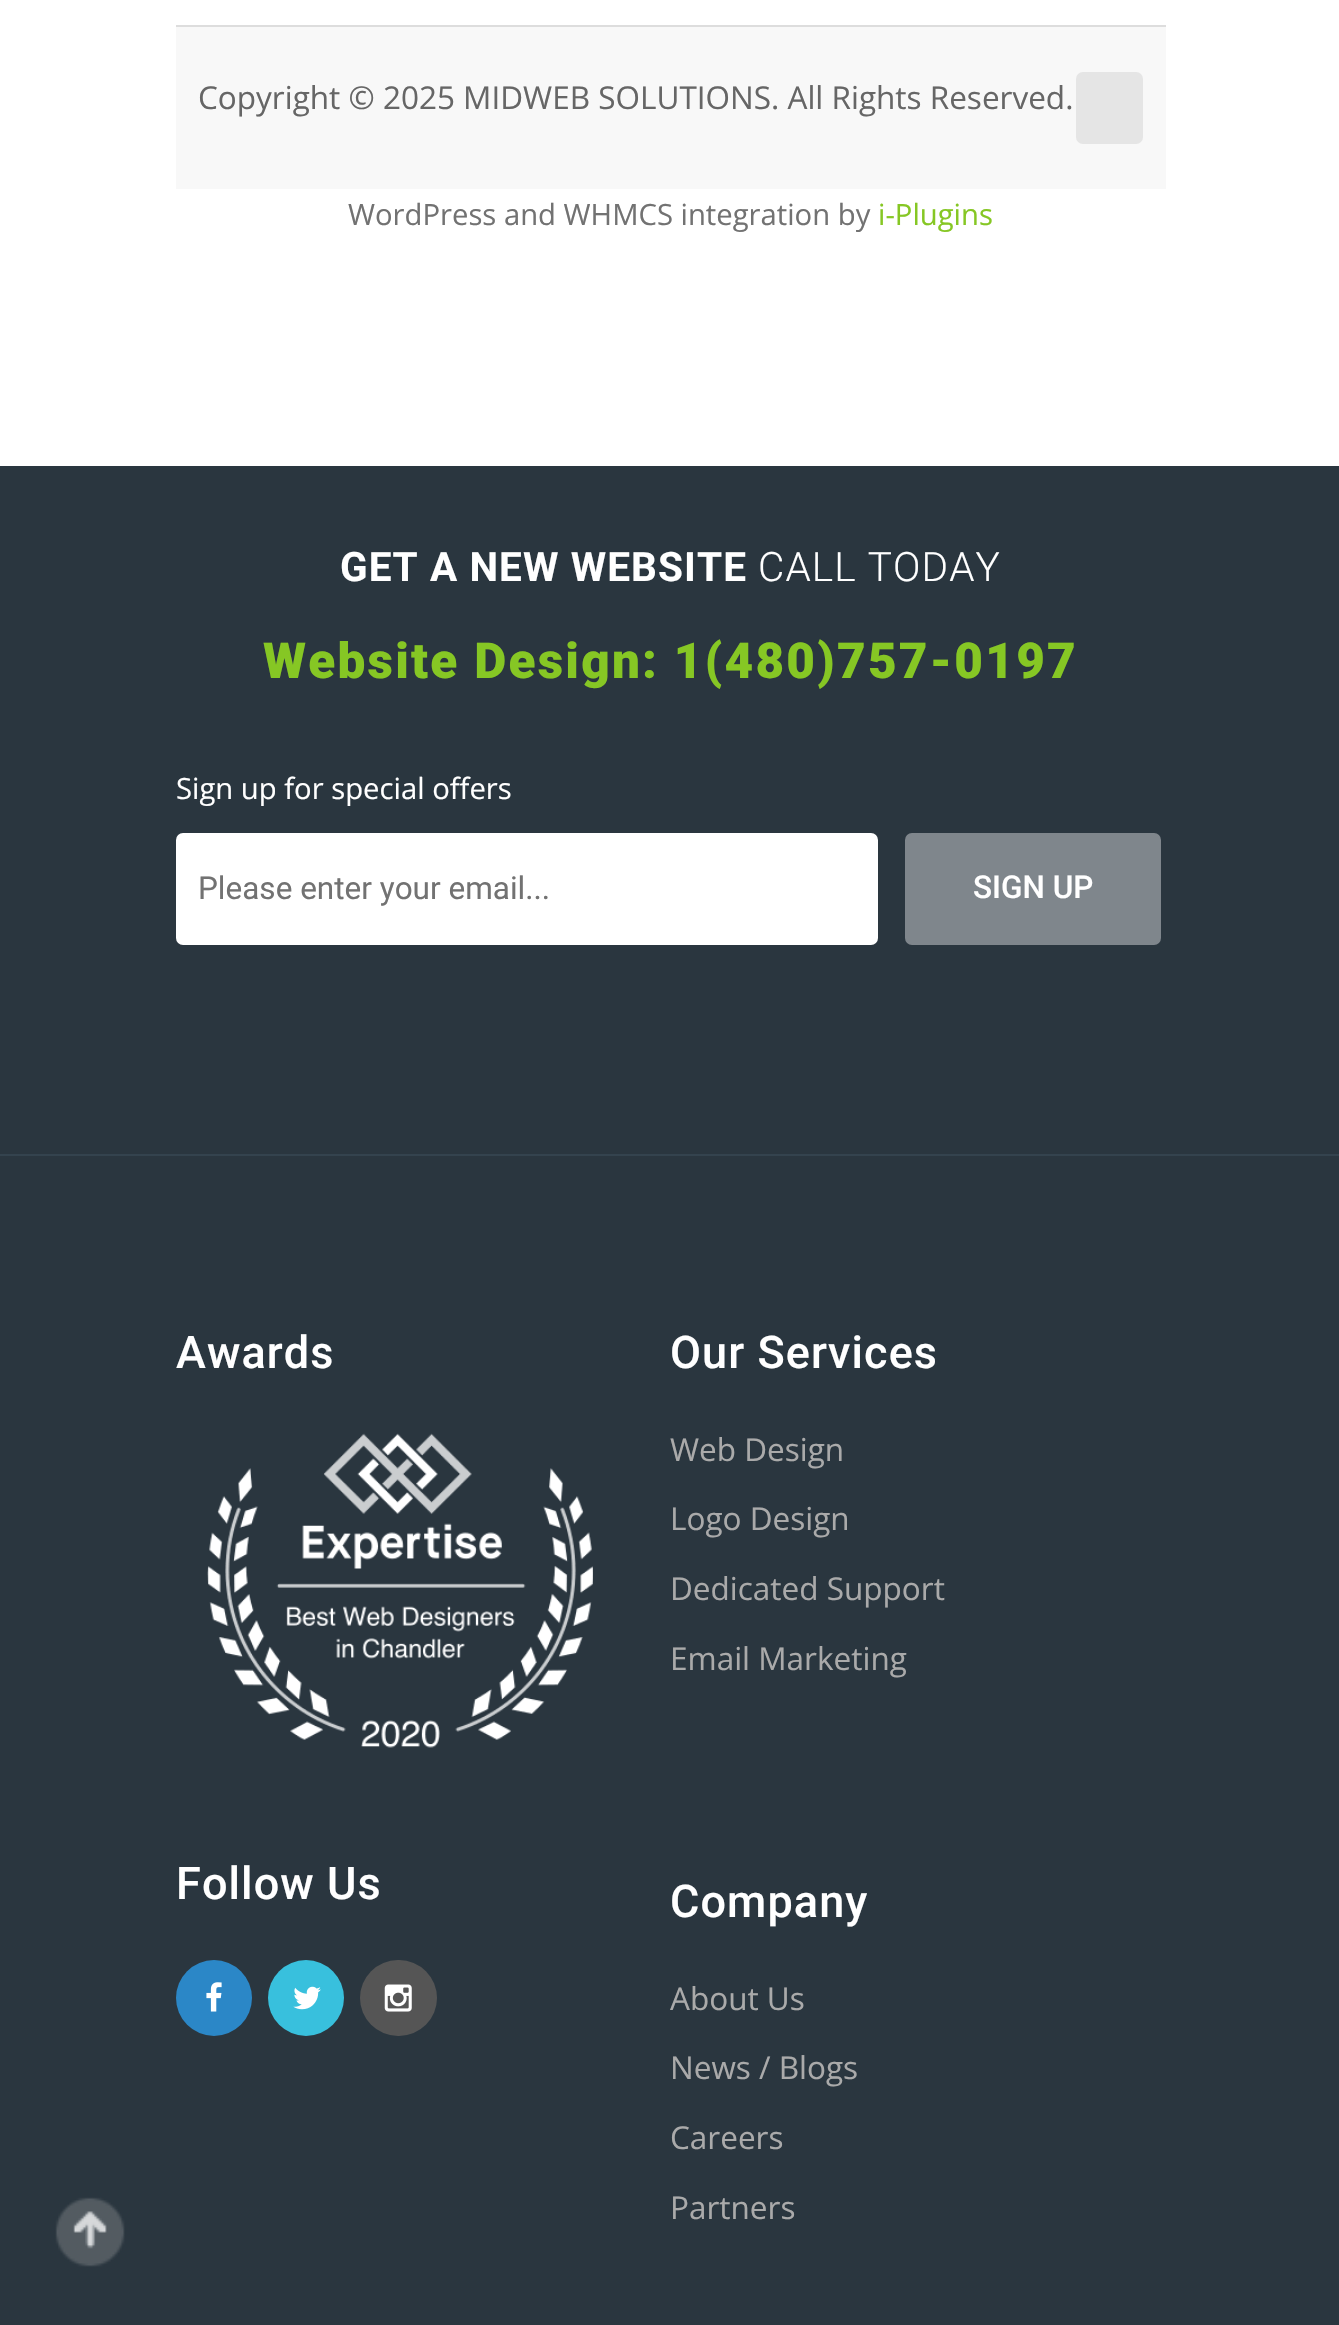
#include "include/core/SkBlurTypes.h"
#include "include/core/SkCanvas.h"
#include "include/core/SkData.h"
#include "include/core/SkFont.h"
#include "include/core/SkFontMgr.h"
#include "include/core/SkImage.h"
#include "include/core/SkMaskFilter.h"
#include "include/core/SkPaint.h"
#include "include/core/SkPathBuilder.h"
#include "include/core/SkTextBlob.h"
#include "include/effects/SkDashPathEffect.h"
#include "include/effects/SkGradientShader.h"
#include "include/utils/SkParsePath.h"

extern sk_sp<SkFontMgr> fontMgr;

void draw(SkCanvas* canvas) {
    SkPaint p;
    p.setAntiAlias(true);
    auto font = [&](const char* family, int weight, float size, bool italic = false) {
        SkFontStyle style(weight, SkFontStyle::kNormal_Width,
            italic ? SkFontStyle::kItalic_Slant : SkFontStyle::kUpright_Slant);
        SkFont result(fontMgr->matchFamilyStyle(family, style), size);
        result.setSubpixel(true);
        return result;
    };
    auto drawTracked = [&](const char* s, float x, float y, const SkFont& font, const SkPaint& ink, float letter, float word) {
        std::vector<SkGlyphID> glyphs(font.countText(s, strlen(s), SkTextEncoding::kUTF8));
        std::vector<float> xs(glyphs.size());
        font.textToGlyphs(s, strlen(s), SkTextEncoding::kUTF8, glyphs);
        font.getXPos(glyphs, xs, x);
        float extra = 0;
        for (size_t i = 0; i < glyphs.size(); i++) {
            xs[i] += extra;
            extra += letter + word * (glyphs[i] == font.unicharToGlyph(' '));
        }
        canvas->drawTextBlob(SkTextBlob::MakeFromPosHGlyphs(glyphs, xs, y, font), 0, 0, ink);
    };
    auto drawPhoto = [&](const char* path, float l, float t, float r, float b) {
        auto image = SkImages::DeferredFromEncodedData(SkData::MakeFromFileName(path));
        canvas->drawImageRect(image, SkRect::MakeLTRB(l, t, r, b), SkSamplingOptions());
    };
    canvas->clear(0xFFFFFFFF);
    p.setColor(0xFFF8F8F8);
    canvas->drawRect(SkRect::MakeLTRB(176, 27, 1166, 189), p);
    p.setColor(0xFFDDDDDD);
    canvas->drawRect(SkRect::MakeLTRB(176, 25, 1166, 27), p);
    auto font1 = font("Open Sans", 400, 31.5f);
    p.setColor(0xFF666666);
    canvas->drawString("Copyright © 2025 MIDWEB SOLUTIONS. All Rights Reserved.", 198, 109, font1, p);
    p.setColor(0xFFE5E5E5);
    canvas->drawRoundRect(SkRect::MakeLTRB(1076, 72, 1143, 144), 7, 7, p);
    auto font2 = font("Open Sans", 400, 29.25f);
    p.setColor(0xFF727272);
    canvas->drawString("WordPress and WHMCS integration by", 348, 225, font2, p);
    p.setColor(0xFF86C724);
    canvas->drawString("i-Plugins", 878, 225, font2, p);
    p.setColor(0xFF2A363F);
    canvas->drawRect(SkRect::MakeLTRB(0, 466, 1339, 2325), p);
    p.setColor(0xFF34434E);
    canvas->drawRect(SkRect::MakeLTRB(0, 1154, 1339, 1156), p);
    auto font3 = font("Roboto", 700, 40.5f);
    p.setColor(0xFFFFFFFF);
    drawTracked("GET A NEW WEBSITE", 340, 581, font3, p, 1.1f, 0);
    auto font4 = font("Roboto", 300, 40.5f);
    drawTracked("CALL TODAY", 758, 581, font4, p, 1.1f, 0);
    auto font5 = font("Roboto", 900, 49.5f);
    p.setColor(0xFF86C724);
    drawTracked("Website Design: 1(480)757-0197", 263, 678, font5, p, 2.25f, 0);
    p.setColor(0xFFFFFFFF);
    canvas->drawString("Sign up for special offers", 176, 799, font2, p);
    canvas->drawRoundRect(SkRect::MakeLTRB(176, 833, 878, 945), 7, 7, p);
    auto font6 = font("Roboto", 400, 31.5f);
    p.setColor(0xFF727272);
    canvas->drawString("Please enter your email...", 198, 899, font6, p);
    p.setColor(0xFF7F868C);
    canvas->drawRoundRect(SkRect::MakeLTRB(905, 833, 1161, 945), 7, 7, p);
    auto font7 = font("Roboto", 500, 31.5f);
    p.setColor(0xFFFFFFFF);
    canvas->drawString("SIGN UP", 973, 898, font7, p);
    auto font8 = font("Roboto", 500, 45);
    drawTracked("Awards", 176, 1368, font8, p, 1.1f, 0);
    drawPhoto("media/1.png", 207, 1433, 593, 1748);
    drawTracked("Follow Us", 176, 1899, font8, p, 1.1f, 0);
    p.setColor(0xFF2B87C7);
    canvas->drawCircle(214, 1998, 38, p);
    drawPhoto("media/2.png", 206, 1982, 222, 2012);
    p.setColor(0xFF38C0DD);
    canvas->drawCircle(306, 1998, 38, p);
    drawPhoto("media/3.png", 293, 1986, 321, 2010);
    p.setColor(0xFF555555);
    canvas->drawRoundRect(SkRect::MakeLTRB(360, 1960, 437, 2036), 38, 38, p);
    drawPhoto("media/4.png", 384, 1984, 412, 2012);
    p.setColor(0xFFFFFFFF);
    drawTracked("Our Services", 670, 1368, font8, p, 1.1f, 0);
    p.setColor(0xFFAAAAAA);
    {
        const struct { const char* s; float x, y; } items[] = {
            {"Web Design", 670, 1461},
            {"Logo Design", 670, 1530},
            {"Dedicated Support", 670, 1600},
            {"Email Marketing", 670, 1670},
        };
        for (auto [s, x, y] : items) {
            canvas->drawString(s, x, y, font1, p);
        }
    }
    p.setColor(0xFFFFFFFF);
    drawTracked("Company", 670, 1917, font8, p, 1.1f, 0);
    p.setColor(0xFFAAAAAA);
    {
        const struct { const char* s; float x, y; } items[] = {
            {"About Us", 670, 2010},
            {"News / Blogs", 670, 2079},
            {"Careers", 670, 2149},
            {"Partners", 670, 2219},
        };
        for (auto [s, x, y] : items) {
            canvas->drawString(s, x, y, font1, p);
        }
    }
    drawPhoto("media/5.png", 55, 2197, 125, 2267);
}
